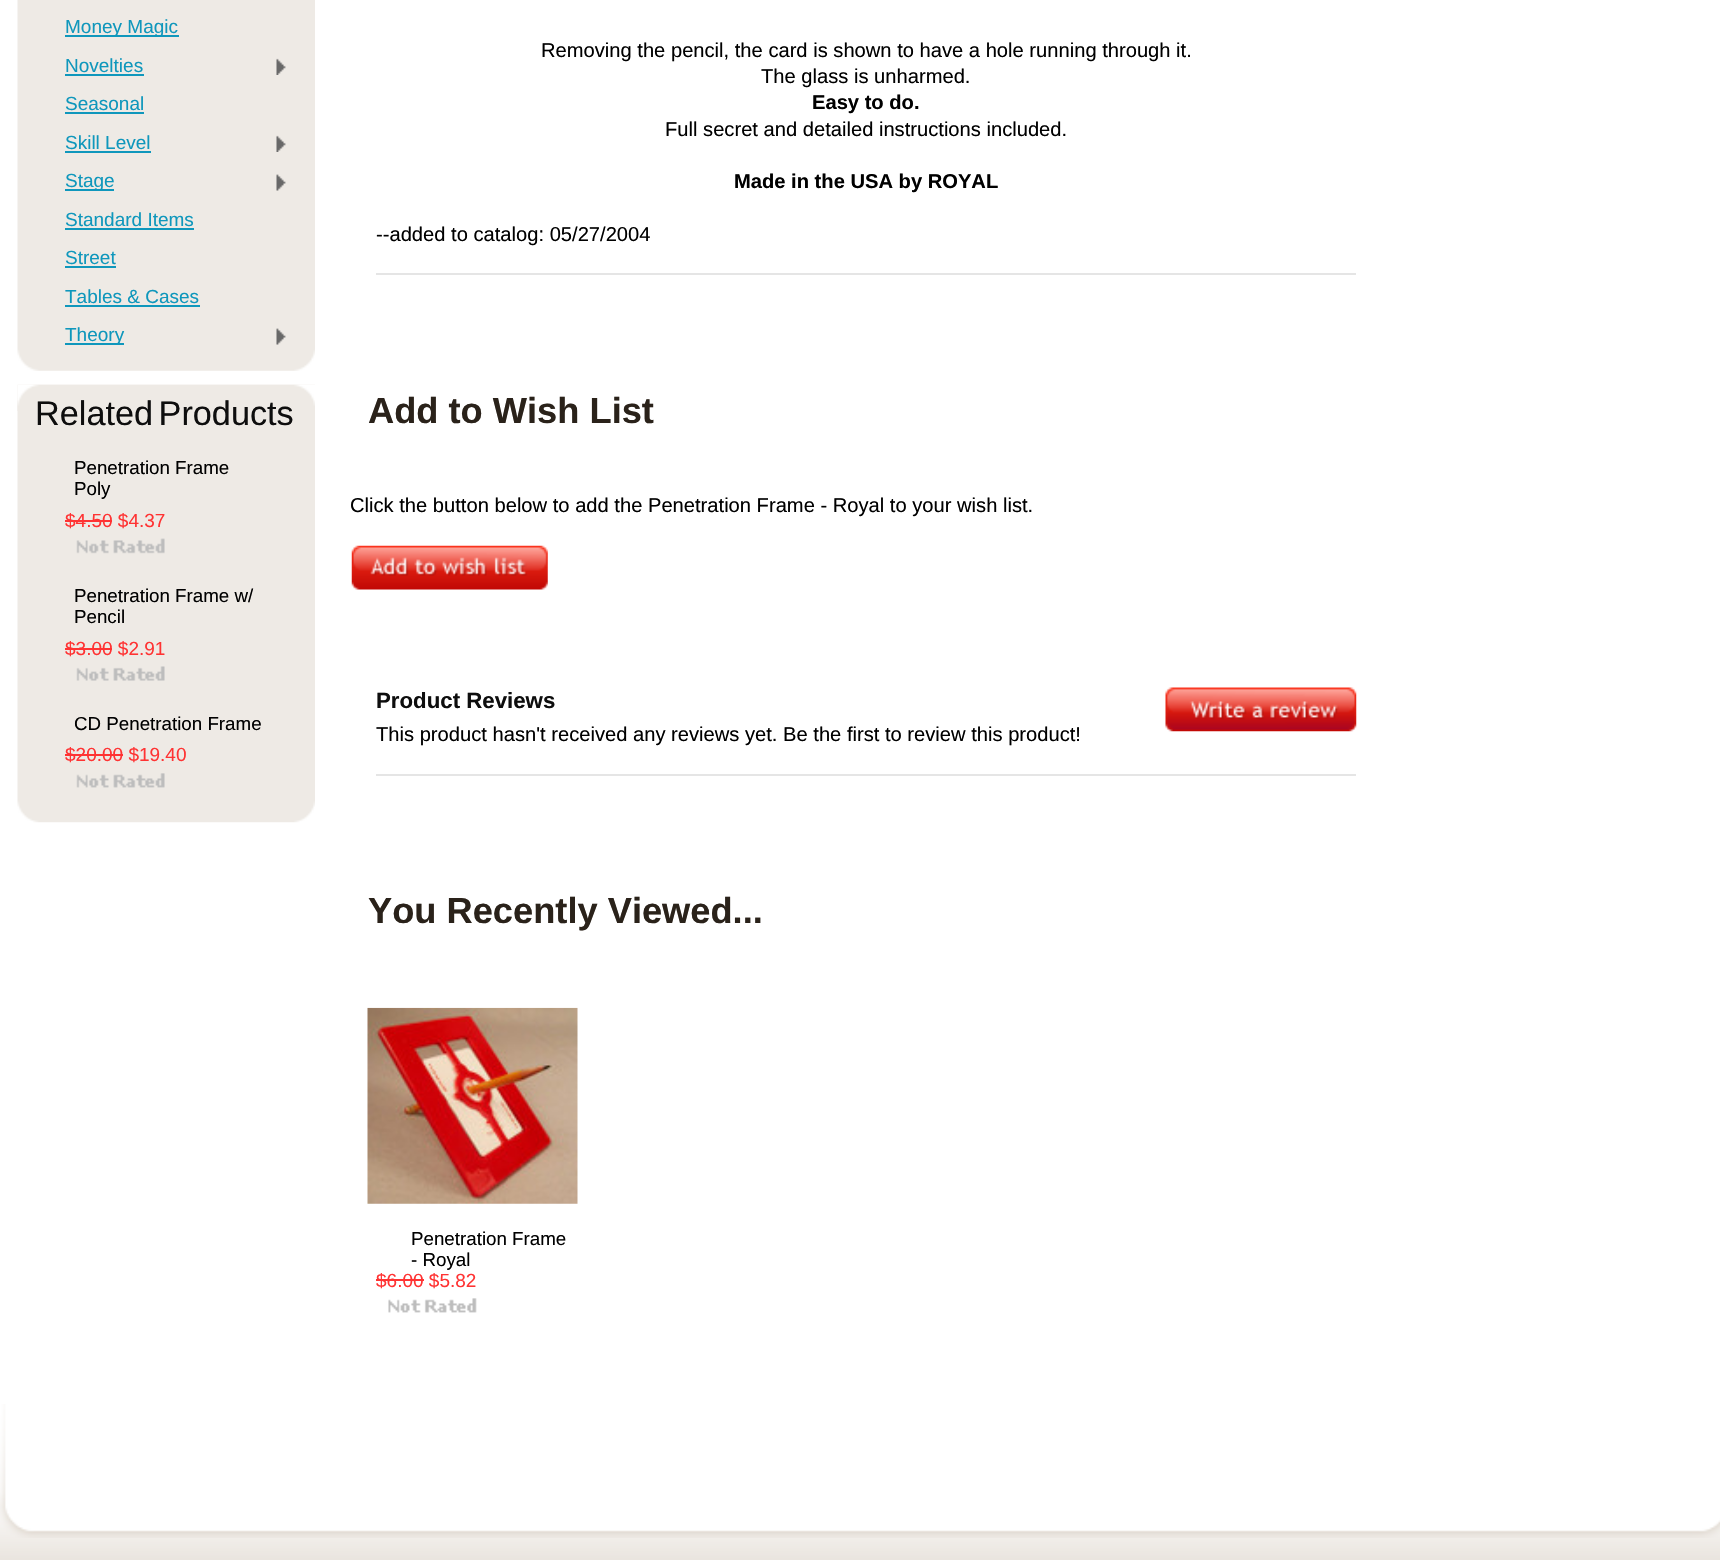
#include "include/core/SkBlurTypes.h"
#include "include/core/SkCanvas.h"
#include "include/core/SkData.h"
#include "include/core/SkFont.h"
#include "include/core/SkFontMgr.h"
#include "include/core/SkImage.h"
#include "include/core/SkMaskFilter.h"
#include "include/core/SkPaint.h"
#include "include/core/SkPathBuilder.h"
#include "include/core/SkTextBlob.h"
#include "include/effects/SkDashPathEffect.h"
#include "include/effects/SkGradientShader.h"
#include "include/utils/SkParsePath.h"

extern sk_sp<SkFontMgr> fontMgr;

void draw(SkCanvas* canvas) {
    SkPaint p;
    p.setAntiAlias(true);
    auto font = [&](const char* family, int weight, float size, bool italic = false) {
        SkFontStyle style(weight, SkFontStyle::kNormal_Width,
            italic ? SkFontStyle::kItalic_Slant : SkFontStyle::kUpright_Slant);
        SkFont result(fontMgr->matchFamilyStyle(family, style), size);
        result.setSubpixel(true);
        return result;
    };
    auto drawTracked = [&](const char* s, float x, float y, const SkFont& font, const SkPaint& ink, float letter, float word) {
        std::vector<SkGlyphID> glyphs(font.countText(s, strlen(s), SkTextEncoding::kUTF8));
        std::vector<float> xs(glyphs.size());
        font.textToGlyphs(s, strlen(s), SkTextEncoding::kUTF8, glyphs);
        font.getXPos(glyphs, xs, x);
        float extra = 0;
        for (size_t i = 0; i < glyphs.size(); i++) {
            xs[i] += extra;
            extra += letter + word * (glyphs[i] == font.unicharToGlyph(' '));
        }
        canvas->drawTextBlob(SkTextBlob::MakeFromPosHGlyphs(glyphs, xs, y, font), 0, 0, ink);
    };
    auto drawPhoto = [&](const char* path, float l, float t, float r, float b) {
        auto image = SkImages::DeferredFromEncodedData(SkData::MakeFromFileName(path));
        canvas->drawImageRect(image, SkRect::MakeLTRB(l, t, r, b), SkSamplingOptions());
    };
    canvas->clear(0xFFFFFFFF);
    drawPhoto("media/1.png", 17, 0, 315, 371);
    p.setColor(0xFF0F97BC);
    canvas->drawRect(SkRect::MakeLTRB(65, 35, 179, 37), p);
    auto font1 = font("Liberation Sans", 400, 19);
    canvas->drawString("Money Magic", 65, 33, font1, p);
    canvas->drawString("Novelties", 65, 72, font1, p);
    canvas->drawRect(SkRect::MakeLTRB(65, 74, 144, 76), p);
    drawPhoto("media/2.png", 276, 58, 286, 75);
    canvas->drawString("Seasonal", 65, 110, font1, p);
    canvas->drawRect(SkRect::MakeLTRB(65, 112, 144, 114), p);
    canvas->drawString("Skill Level", 65, 149, font1, p);
    canvas->drawRect(SkRect::MakeLTRB(65, 151, 151, 153), p);
    drawPhoto("media/3.png", 276, 135, 286, 152);
    canvas->drawRect(SkRect::MakeLTRB(65, 189, 114, 191), p);
    canvas->drawString("Stage", 65, 187, font1, p);
    drawPhoto("media/4.png", 276, 174, 286, 191);
    canvas->drawString("Standard Items", 65, 226, font1, p);
    canvas->drawRect(SkRect::MakeLTRB(65, 228, 194, 230), p);
    canvas->drawString("Street", 65, 264, font1, p);
    canvas->drawRect(SkRect::MakeLTRB(65, 266, 116, 268), p);
    canvas->drawString("Tables & Cases", 65, 303, font1, p);
    canvas->drawRect(SkRect::MakeLTRB(65, 305, 200, 307), p);
    canvas->drawRect(SkRect::MakeLTRB(65, 343, 124, 345), p);
    canvas->drawString("Theory", 65, 341, font1, p);
    drawPhoto("media/4.png", 276, 328, 286, 345);
    drawPhoto("media/5.png", 17, 384, 315, 823);
    drawPhoto("media/6.png", 17, 384, 315, 411);
    auto font2 = font("Liberation Sans", 400, 34.25f);
    p.setColor(0xFF0E0E0E);
    drawTracked("Related Products", 35, 425, font2, p, 0, -4);
    auto font3 = font("Liberation Sans", 400, 18.75f);
    p.setColor(0xFF000000);
    canvas->drawString("Penetration Frame", 74, 474, font3, p);
    canvas->drawString("Poly", 74, 495, font3, p);
    p.setColor(0xFFFF3333);
    canvas->drawString("$4.50 $4.37", 65, 527, font1, p);
    canvas->drawRect(SkRect::MakeLTRB(65, 520, 112, 522), p);
    drawPhoto("media/7.png", 76, 538, 165, 554);
    p.setColor(0xFF000000);
    canvas->drawString("Penetration Frame w/", 74, 602, font3, p);
    canvas->drawString("Pencil", 74, 623, font3, p);
    p.setColor(0xFFFF3333);
    canvas->drawString("$3.00 $2.91", 65, 655, font1, p);
    canvas->drawRect(SkRect::MakeLTRB(65, 648, 112, 650), p);
    drawPhoto("media/8.png", 76, 666, 165, 681);
    p.setColor(0xFF000000);
    canvas->drawString("CD Penetration Frame", 74, 730, font3, p);
    p.setColor(0xFFFF3333);
    canvas->drawString("$20.00 $19.40", 65, 761, font1, p);
    canvas->drawRect(SkRect::MakeLTRB(65, 754, 123, 756), p);
    drawPhoto("media/9.png", 76, 773, 165, 788);
    auto font4 = font("Liberation Sans", 400, 20.15f);
    p.setColor(0xFF000000);
    canvas->drawString("Removing the pencil, the card is shown to have a hole running through it.", 541, 57, font4, p);
    canvas->drawString("The glass is unharmed.", 761, 83, font4, p);
    auto font5 = font("Liberation Sans", 700, 20.15f);
    canvas->drawString("Easy to do.", 812, 109, font5, p);
    canvas->drawString("Full secret and detailed instructions included.", 665, 136, font4, p);
    canvas->drawString("Made in the USA by ROYAL", 734, 188, font5, p);
    canvas->drawString("--added to catalog: 05/27/2004", 376, 241, font4, p);
    p.setColor(0xFFE5E5E5);
    canvas->drawRect(SkRect::MakeLTRB(376, 273, 1356, 275), p);
    auto font6 = font("Liberation Sans", 700, 36.25f);
    p.setColor(0xFF2A221A);
    canvas->drawString("Add to Wish List", 368, 423, font6, p);
    p.setColor(0xFF000000);
    canvas->drawString("Click the button below to add the Penetration Frame - Royal to your wish list.", 350, 512, font4, p);
    drawPhoto("media/10.png", 351, 545, 548, 590);
    auto font7 = font("Liberation Sans", 700, 22.25f);
    p.setColor(0xFF0E0E0E);
    canvas->drawString("Product Reviews", 376, 708, font7, p);
    drawPhoto("media/11.png", 1165, 687, 1357, 732);
    p.setColor(0xFF000000);
    canvas->drawString("This product hasn't received any reviews yet. Be the first to review this product!", 376, 741, font4, p);
    p.setColor(0xFFE5E5E5);
    canvas->drawRect(SkRect::MakeLTRB(376, 774, 1356, 776), p);
    p.setColor(0xFF2A221A);
    canvas->drawString("You Recently Viewed...", 368, 923, font6, p);
    drawPhoto("media/12.png", 367, 1007, 578, 1204);
    p.setColor(0xFF000000);
    canvas->drawString("Penetration Frame", 411, 1245, font3, p);
    canvas->drawString("- Royal", 411, 1266, font3, p);
    p.setColor(0xFFFF3333);
    canvas->drawString("$6.00 $5.82", 376, 1287, font1, p);
    canvas->drawRect(SkRect::MakeLTRB(376, 1279, 424, 1281), p);
    drawPhoto("media/13.png", 388, 1298, 477, 1313);
    drawPhoto("media/14.png", 0, 1538, 1720, 1560);
    drawPhoto("media/15.png", 0, 1404, 1720, 1538);
}
